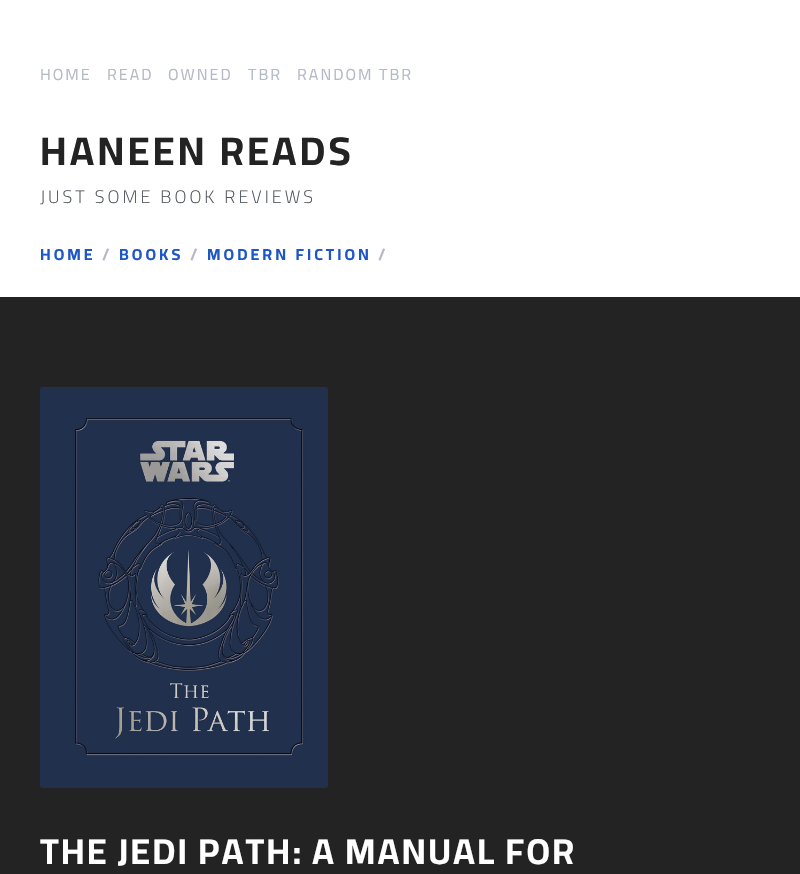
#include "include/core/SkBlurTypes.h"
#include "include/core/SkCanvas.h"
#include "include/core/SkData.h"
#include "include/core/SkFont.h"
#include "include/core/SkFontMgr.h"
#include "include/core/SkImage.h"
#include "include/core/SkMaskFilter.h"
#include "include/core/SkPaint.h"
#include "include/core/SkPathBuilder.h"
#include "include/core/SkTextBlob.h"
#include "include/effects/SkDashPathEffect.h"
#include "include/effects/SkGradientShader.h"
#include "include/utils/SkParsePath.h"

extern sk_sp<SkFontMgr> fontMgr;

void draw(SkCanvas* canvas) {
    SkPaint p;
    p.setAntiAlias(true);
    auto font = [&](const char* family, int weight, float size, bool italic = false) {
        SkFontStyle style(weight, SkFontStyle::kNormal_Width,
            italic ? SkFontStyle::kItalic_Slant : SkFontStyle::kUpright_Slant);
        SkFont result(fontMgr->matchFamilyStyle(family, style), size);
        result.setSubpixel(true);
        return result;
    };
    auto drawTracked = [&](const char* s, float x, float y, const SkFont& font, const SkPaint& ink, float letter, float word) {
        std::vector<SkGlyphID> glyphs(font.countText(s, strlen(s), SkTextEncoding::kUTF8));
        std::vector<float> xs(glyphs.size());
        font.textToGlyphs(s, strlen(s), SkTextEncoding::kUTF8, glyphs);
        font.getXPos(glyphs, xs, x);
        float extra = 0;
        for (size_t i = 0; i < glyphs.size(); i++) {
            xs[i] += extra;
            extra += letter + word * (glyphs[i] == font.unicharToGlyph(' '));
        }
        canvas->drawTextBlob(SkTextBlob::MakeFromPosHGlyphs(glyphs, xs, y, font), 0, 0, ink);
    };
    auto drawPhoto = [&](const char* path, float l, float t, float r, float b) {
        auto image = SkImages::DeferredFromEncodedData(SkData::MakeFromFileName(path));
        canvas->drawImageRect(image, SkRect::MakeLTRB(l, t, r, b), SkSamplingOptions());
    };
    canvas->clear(0xFFFFFFFF);
    auto font1 = font("Cairo", 400, 16);
    p.setColor(0xFFB4BAC6);
    {
        const struct { const char* s; float x, y; } items[] = {
            {"HOME", 40, 80},
            {"READ", 107, 80},
            {"OWNED", 168, 80},
            {"TBR", 248, 80},
            {"RANDOM TBR", 297, 80},
        };
        for (auto [s, x, y] : items) {
            drawTracked(s, x, y, font1, p, 2, 0);
        }
    }
    auto font2 = font("Cairo", 700, 40);
    p.setColor(0xFF232323);
    drawTracked("HANEEN READS", 40, 165, font2, p, 3, 0);
    auto font3 = font("Cairo", 300, 18);
    p.setColor(0xFF50545E);
    drawTracked("JUST SOME BOOK REVIEWS", 40, 203, font3, p, 3, 0);
    auto font4 = font("Cairo", 700, 16);
    p.setColor(0xFF1D56C6);
    drawTracked("HOME", 40, 260, font4, p, 3, 0);
    p.setColor(0xFFB4BAC6);
    drawTracked("/", 102, 260, font4, p, 3, 0);
    p.setColor(0xFF1D56C6);
    drawTracked("BOOKS", 119, 260, font4, p, 3, 0);
    p.setColor(0xFFB4BAC6);
    drawTracked("/", 190, 260, font4, p, 3, 0);
    p.setColor(0xFF1D56C6);
    drawTracked("MODERN FICTION", 207, 260, font4, p, 3, 0);
    p.setColor(0xFFB4BAC6);
    drawTracked("/", 378, 260, font4, p, 3, 0);
    p.setColor(0xFF232323);
    canvas->drawRect(SkRect::MakeLTRB(0, 297, 800, 874), p);
    drawPhoto("media/1.png", 40, 387, 328, 788);
    auto font5 = font("Cairo", 700, 36);
    p.setColor(0xFFFFFFFF);
    drawTracked("THE JEDI PATH: A MANUAL FOR", 40, 864, font5, p, 2, -1);
}
